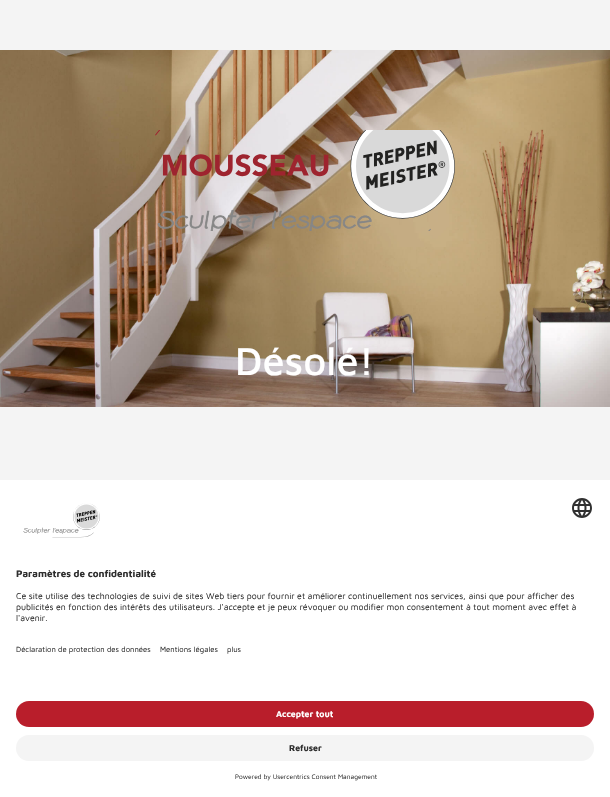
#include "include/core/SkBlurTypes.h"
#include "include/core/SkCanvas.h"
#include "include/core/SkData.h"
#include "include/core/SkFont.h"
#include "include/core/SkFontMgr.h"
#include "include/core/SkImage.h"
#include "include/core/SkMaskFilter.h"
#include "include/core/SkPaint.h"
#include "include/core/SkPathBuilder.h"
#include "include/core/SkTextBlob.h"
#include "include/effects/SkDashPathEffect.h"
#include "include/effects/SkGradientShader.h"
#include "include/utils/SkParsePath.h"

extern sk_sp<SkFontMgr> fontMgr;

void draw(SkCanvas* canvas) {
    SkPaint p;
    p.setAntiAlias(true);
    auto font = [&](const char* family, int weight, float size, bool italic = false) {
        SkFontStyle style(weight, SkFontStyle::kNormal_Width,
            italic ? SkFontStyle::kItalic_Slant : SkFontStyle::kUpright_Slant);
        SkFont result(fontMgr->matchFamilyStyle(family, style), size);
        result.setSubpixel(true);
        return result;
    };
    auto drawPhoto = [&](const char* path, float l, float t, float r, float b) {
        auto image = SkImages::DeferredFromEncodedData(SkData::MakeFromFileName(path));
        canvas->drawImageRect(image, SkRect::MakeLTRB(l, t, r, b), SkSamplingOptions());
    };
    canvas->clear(0xFFF4F4F4);
    drawPhoto("media/2.png", 0, 50, 610, 407);
    drawPhoto("media/1.png", 155, 130, 455, 231);
    auto font1 = font("Maven Pro", 500, 40);
    p.setColor(0xFFFFFFFF);
    canvas->drawString("Désolé!", 235, 375, font1, p);
    canvas->drawRect(SkRect::MakeLTRB(0, 480, 610, 797), p);
    drawPhoto("media/3.png", 23, 503, 100, 538);
    drawPhoto("media/4.png", 572, 498, 592, 518);
    auto font2 = font("Maven Pro", 700, 9.8f);
    p.setColor(0xFF2F2F2F);
    canvas->drawString("Paramètres de confidentialité", 16, 577, font2, p);
    auto font3 = font("Maven Pro", 400, 8.75f);
    {
        const struct { const char* s; float x, y; } items[] = {
            {"Ce site utilise des technologies de suivi de sites Web tiers pour fournir et améliorer continuellement nos services, ainsi que pour afficher des", 16, 599},
            {"publicités en fonction des intérêts des utilisateurs. J'accepte et je peux révoquer ou modifier mon consentement à tout moment avec effet à", 16, 610},
            {"l'avenir.", 16, 621},
        };
        for (auto [s, x, y] : items) {
            canvas->drawString(s, x, y, font3, p);
        }
    }
    auto font4 = font("Maven Pro", 400, 7.7f);
    {
        const struct { const char* s; float x, y; } items[] = {
            {"Déclaration de protection des données", 16, 652},
            {"Mentions légales", 160, 652},
            {"plus", 227, 652},
        };
        for (auto [s, x, y] : items) {
            canvas->drawString(s, x, y, font4, p);
        }
    }
    p.setColor(0xFFB91E2B);
    canvas->drawRoundRect(SkRect::MakeLTRB(16, 701, 594, 727), 13, 13, p);
    auto font5 = font("Maven Pro", 700, 8.75f);
    p.setColor(0xFFFFFFFF);
    canvas->drawString("Accepter tout", 276, 717, font5, p);
    p.setColor(0xFFF4F4F4);
    canvas->drawRoundRect(SkRect::MakeLTRB(16, 735, 594, 761), 13, 13, p);
    p.setColor(0xFF2F2F2F);
    canvas->drawString("Refuser", 289, 751, font5, p);
    auto font6 = font("Maven Pro", 400, 6.6f);
    canvas->drawString("Powered by Usercentrics Consent Management", 235, 779, font6, p);
}
